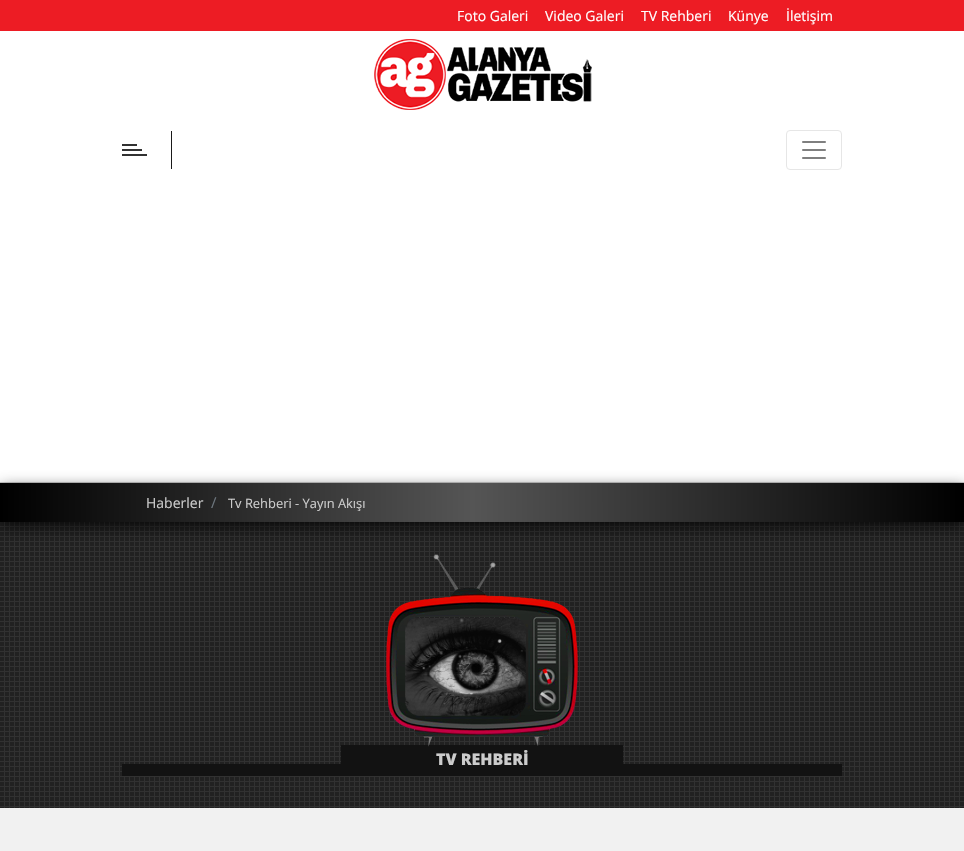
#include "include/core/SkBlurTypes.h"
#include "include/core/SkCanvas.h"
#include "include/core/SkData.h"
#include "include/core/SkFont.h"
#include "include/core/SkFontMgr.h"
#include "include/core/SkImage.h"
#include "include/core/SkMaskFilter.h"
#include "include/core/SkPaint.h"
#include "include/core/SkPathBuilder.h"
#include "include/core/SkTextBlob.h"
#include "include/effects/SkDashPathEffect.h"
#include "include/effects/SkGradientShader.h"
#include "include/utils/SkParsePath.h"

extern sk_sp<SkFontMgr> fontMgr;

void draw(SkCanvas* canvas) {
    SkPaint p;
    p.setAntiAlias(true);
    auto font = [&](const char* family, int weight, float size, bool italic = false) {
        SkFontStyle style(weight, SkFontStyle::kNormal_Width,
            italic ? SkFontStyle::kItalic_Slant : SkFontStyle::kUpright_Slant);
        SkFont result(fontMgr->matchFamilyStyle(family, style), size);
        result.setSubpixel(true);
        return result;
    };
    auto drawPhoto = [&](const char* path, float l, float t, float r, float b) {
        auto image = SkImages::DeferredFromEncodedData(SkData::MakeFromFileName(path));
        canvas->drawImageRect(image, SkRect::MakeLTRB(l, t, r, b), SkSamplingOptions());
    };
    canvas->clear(0xFFF1F1F1);
    p.setColor(0xFFED1C24);
    canvas->drawRect(SkRect::MakeLTRB(0, 0, 964, 31), p);
    auto font1 = font("Open Sans", 400, 14);
    p.setColor(0xFFFFFFFF);
    {
        const struct { const char* s; float x, y; } items[] = {
            {"Foto Galeri", 457, 21},
            {"Video Galeri", 545, 21},
            {"TV Rehberi", 641, 21},
            {"Künye", 728, 21},
            {"İletişim", 786, 21},
        };
        for (auto [s, x, y] : items) {
            canvas->drawString(s, x, y, font1, p);
        }
    }
    canvas->drawRect(SkRect::MakeLTRB(0, 31, 964, 482), p);
    p.setColor(0xFFCCCCCC);
    canvas->drawRect(SkRect::MakeLTRB(0, 482, 964, 483), p);
    drawPhoto("media/1.png", 374, 39, 592, 110);
    {
        const struct { float l, t, r, b; SkColor color; } items[] = {
            {171, 131, 172, 169, 0xFF1A1A1A},
            {122, 154, 147, 156, 0xFF323232},
            {122, 144, 137, 146, 0xFF323232},
            {122, 149, 142, 151, 0xFF323232},
        };
        for (auto [l, t, r, b, color] : items) {
            p.setColor(color);
            canvas->drawRect(SkRect::MakeLTRB(l, t, r, b), p);
        }
    }
    p.setStyle(SkPaint::kStroke_Style);
    p.setStrokeWidth(1);
    p.setColor(0xFFE6E6E6);
    canvas->drawRoundRect(SkRect::MakeLTRB(786.5f, 130.5f, 841.5f, 169.5f), 3.5f, 3.5f, p);
    drawPhoto("media/2.png", 802, 141, 826, 159);
    p.setStyle(SkPaint::kFill_Style);
    p.setColor(0xFF313131);
    canvas->drawRect(SkRect::MakeLTRB(0, 522, 964, 808), p);
    drawPhoto("media/3.png", 0, 522, 964, 808);
    p.setColor(0xB3000000);
    p.setMaskFilter(SkMaskFilter::MakeBlur(kNormal_SkBlurStyle, 7.5f));
    canvas->drawRect(SkRect::MakeLTRB(1, 488, 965, 527), p);
    p.setMaskFilter(nullptr);
    {
        const SkColor colors[] = {0xFF000000, 0xFF555555, 0xFF000000};
        const float stops[] = {0, 0.49f, 1};
        const SkPoint ends[] = {{0, 503}, {964, 502}};
        p.setShader(SkGradientShader::MakeLinear(ends, colors, stops, 3, SkTileMode::kClamp));
        p.setAlpha(255);
    }
    canvas->drawRect(SkRect::MakeLTRB(0, 483, 964, 522), p);
    p.setShader(nullptr);
    p.setColor(0xFFCCCCCC);
    canvas->drawString("Haberler", 146, 508, font1, p);
    auto font2 = font("Open Sans", 400, 15);
    p.setColor(0xFF6C757D);
    canvas->drawString("/", 211, 508, font2, p);
    auto font3 = font("Open Sans", 400, 12.9f);
    p.setColor(0xFFCCCCCC);
    canvas->drawString("Tv Rehberi - Yayın Akışı", 228, 508, font3, p);
    p.setColor(0xFF121212);
    canvas->drawRect(SkRect::MakeLTRB(122, 764, 842, 776), p);
    drawPhoto("media/5.png", 405, 618, 526, 716);
    canvas->drawRect(SkRect::MakeLTRB(341, 745, 623, 764), p);
    drawPhoto("media/4.png", 386, 554, 578, 747);
    auto font4 = font("Open Sans", 800, 16);
    p.setColor(0xFFCCCCCC);
    canvas->drawString("TV REHBERİ", 436, 765, font4, p);
}
